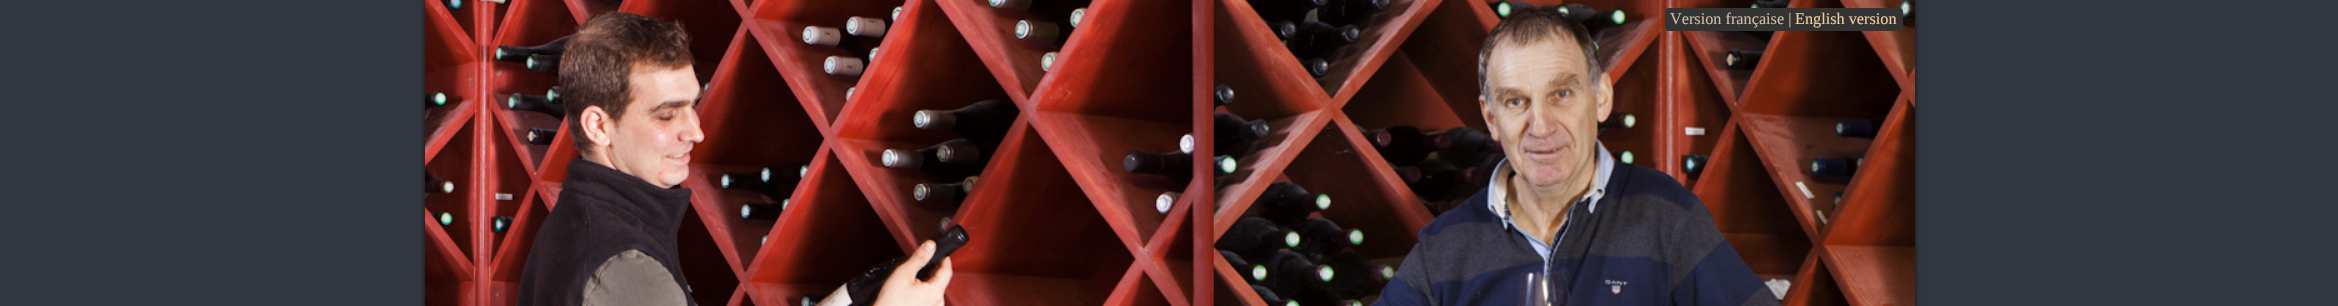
#include "include/core/SkBlurTypes.h"
#include "include/core/SkCanvas.h"
#include "include/core/SkData.h"
#include "include/core/SkFont.h"
#include "include/core/SkFontMgr.h"
#include "include/core/SkImage.h"
#include "include/core/SkMaskFilter.h"
#include "include/core/SkPaint.h"
#include "include/core/SkPathBuilder.h"
#include "include/core/SkTextBlob.h"
#include "include/effects/SkDashPathEffect.h"
#include "include/effects/SkGradientShader.h"
#include "include/utils/SkParsePath.h"

extern sk_sp<SkFontMgr> fontMgr;

void draw(SkCanvas* canvas) {
    SkPaint p;
    p.setAntiAlias(true);
    auto font = [&](const char* family, int weight, float size, bool italic = false) {
        SkFontStyle style(weight, SkFontStyle::kNormal_Width,
            italic ? SkFontStyle::kItalic_Slant : SkFontStyle::kUpright_Slant);
        SkFont result(fontMgr->matchFamilyStyle(family, style), size);
        result.setSubpixel(true);
        return result;
    };
    auto drawPhoto = [&](const char* path, float l, float t, float r, float b) {
        auto image = SkImages::DeferredFromEncodedData(SkData::MakeFromFileName(path));
        canvas->drawImageRect(image, SkRect::MakeLTRB(l, t, r, b), SkSamplingOptions());
    };
    canvas->clear(0xFF32363F);
    p.setColor(0xFF111111);
    p.setMaskFilter(SkMaskFilter::MakeBlur(kNormal_SkBlurStyle, 3));
    canvas->drawRect(SkRect::MakeLTRB(425, 0, 1915, 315), p);
    p.setMaskFilter(nullptr);
    drawPhoto("media/1.png", 425, 0, 1915, 306);
    p.setColor(0xFF333333);
    canvas->drawRoundRect(SkRect::MakeLTRB(1665, 8, 1903, 31), 4, 4, p);
    auto font1 = font("Liberation Serif", 400, 16.25f);
    p.setColor(0xFFCEBCA5);
    canvas->drawString("Version française |", 1670, 24, font1, p);
    p.setColor(0xFFF2CD9E);
    canvas->drawString("English version", 1795, 24, font1, p);
}
